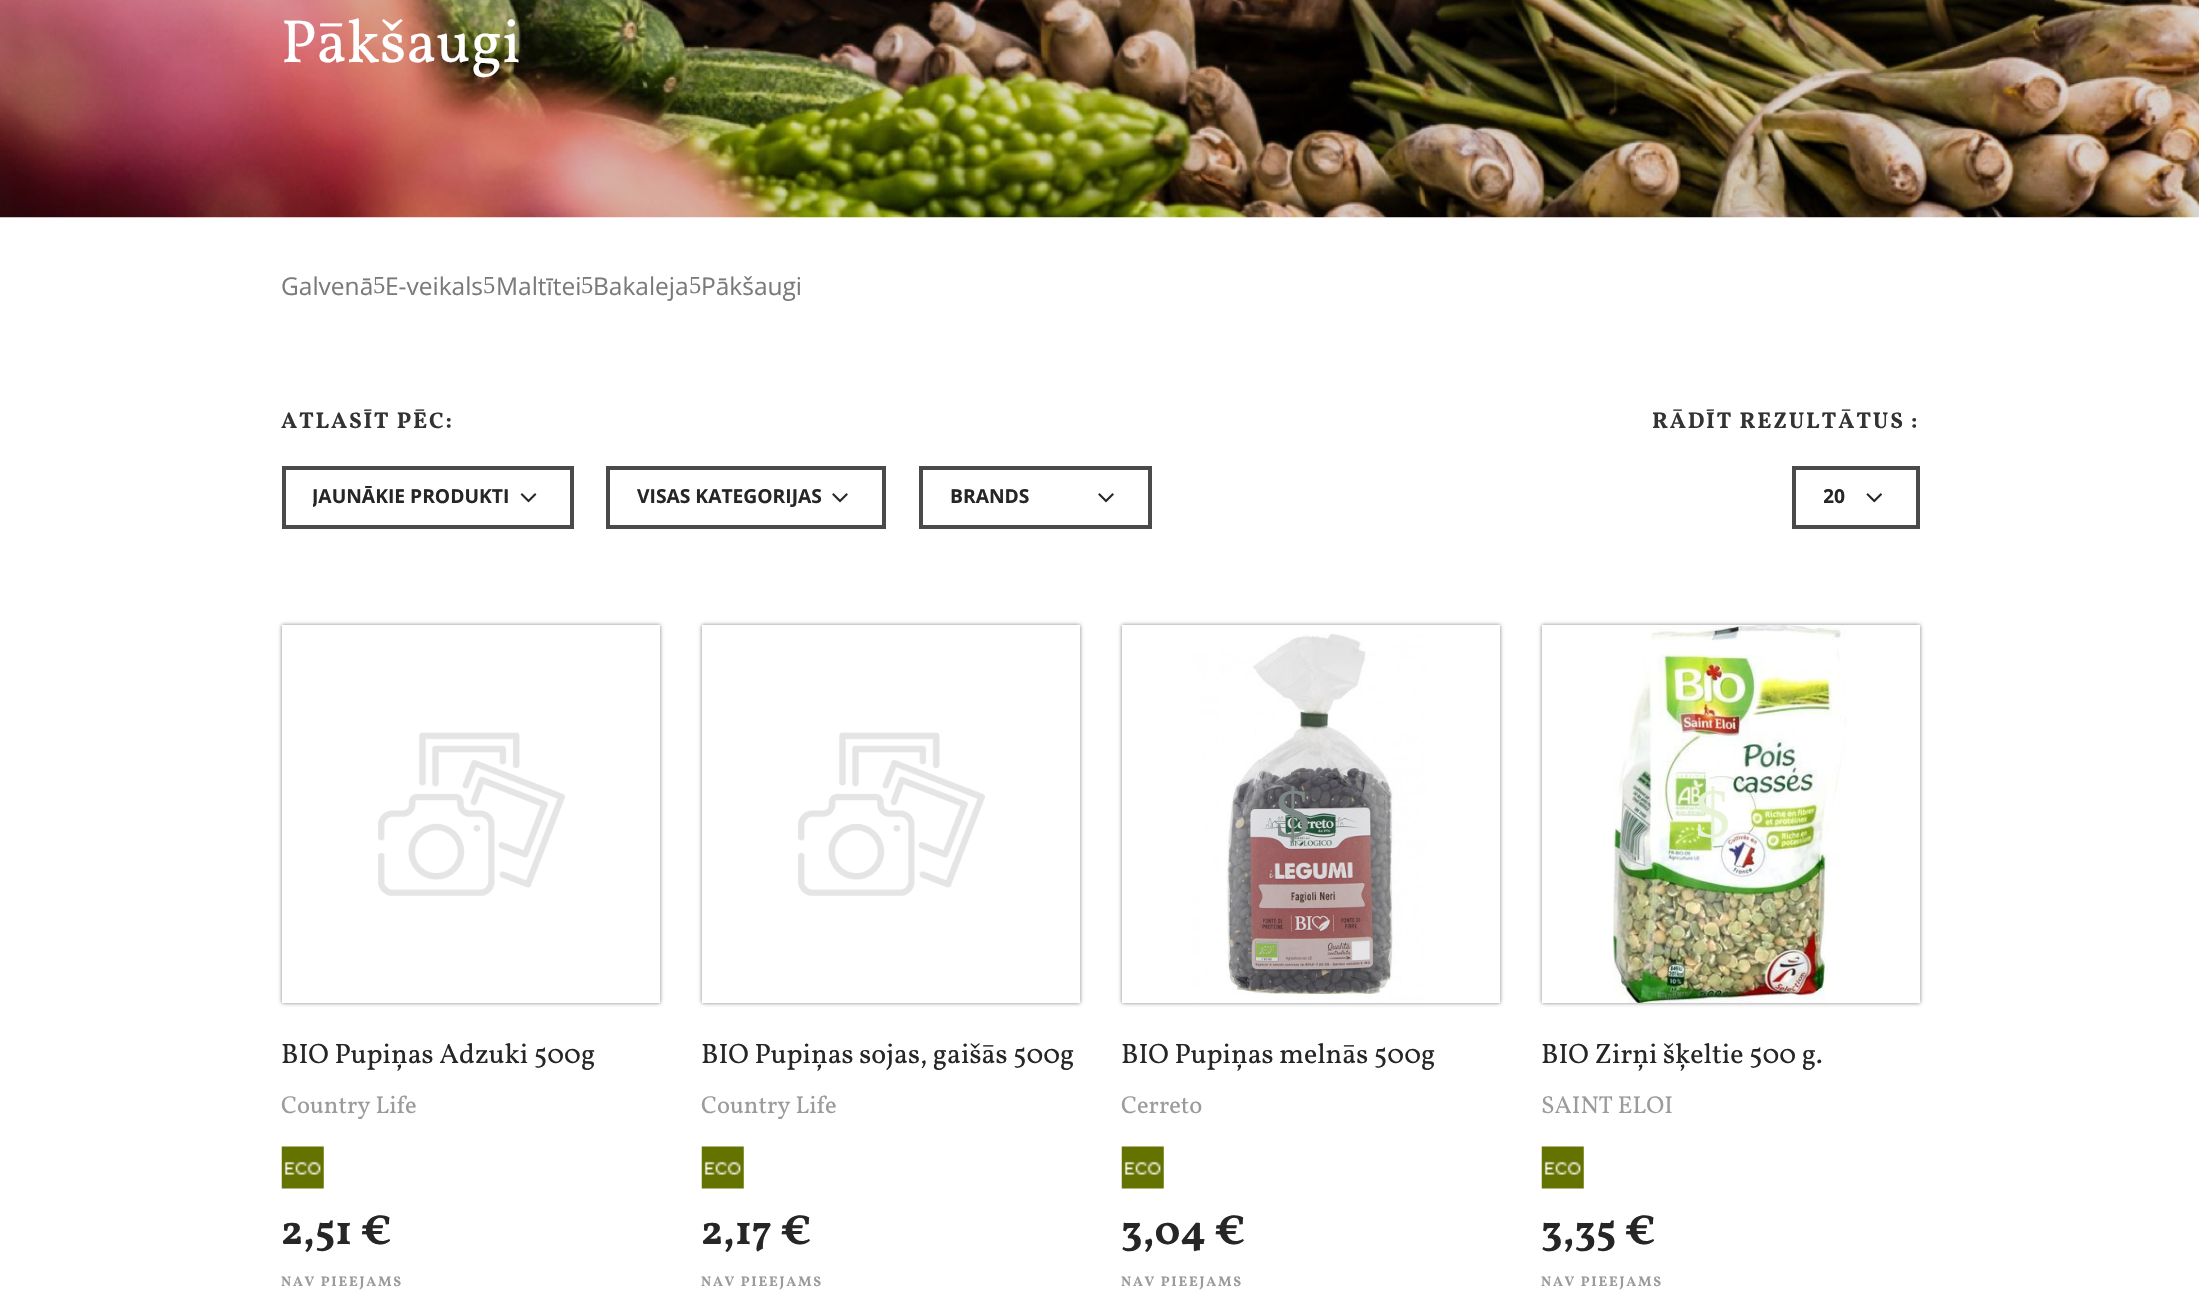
#include "include/core/SkBlurTypes.h"
#include "include/core/SkCanvas.h"
#include "include/core/SkData.h"
#include "include/core/SkFont.h"
#include "include/core/SkFontMgr.h"
#include "include/core/SkImage.h"
#include "include/core/SkMaskFilter.h"
#include "include/core/SkPaint.h"
#include "include/core/SkPathBuilder.h"
#include "include/core/SkTextBlob.h"
#include "include/effects/SkDashPathEffect.h"
#include "include/effects/SkGradientShader.h"
#include "include/utils/SkParsePath.h"

extern sk_sp<SkFontMgr> fontMgr;

void draw(SkCanvas* canvas) {
    SkPaint p;
    p.setAntiAlias(true);
    auto font = [&](const char* family, int weight, float size, bool italic = false) {
        SkFontStyle style(weight, SkFontStyle::kNormal_Width,
            italic ? SkFontStyle::kItalic_Slant : SkFontStyle::kUpright_Slant);
        SkFont result(fontMgr->matchFamilyStyle(family, style), size);
        result.setSubpixel(true);
        return result;
    };
    auto drawTracked = [&](const char* s, float x, float y, const SkFont& font, const SkPaint& ink, float letter, float word) {
        std::vector<SkGlyphID> glyphs(font.countText(s, strlen(s), SkTextEncoding::kUTF8));
        std::vector<float> xs(glyphs.size());
        font.textToGlyphs(s, strlen(s), SkTextEncoding::kUTF8, glyphs);
        font.getXPos(glyphs, xs, x);
        float extra = 0;
        for (size_t i = 0; i < glyphs.size(); i++) {
            xs[i] += extra;
            extra += letter + word * (glyphs[i] == font.unicharToGlyph(' '));
        }
        canvas->drawTextBlob(SkTextBlob::MakeFromPosHGlyphs(glyphs, xs, y, font), 0, 0, ink);
    };
    auto drawPhoto = [&](const char* path, float l, float t, float r, float b) {
        auto image = SkImages::DeferredFromEncodedData(SkData::MakeFromFileName(path));
        canvas->drawImageRect(image, SkRect::MakeLTRB(l, t, r, b), SkSamplingOptions());
    };
    canvas->clear(0xFFFFFFFF);
    drawPhoto("media/1.png", 0, 0, 2199, 218);
    auto font1 = font("Vollkorn", 400, 61);
    p.setColor(0xFFFFFFFF);
    canvas->drawString("Pākšaugi", 281, 62, font1, p);
    auto font2 = font("Open Sans", 400, 24.5f);
    p.setColor(0xFF7A7A7A);
    canvas->drawString("Galvenā", 281, 295, font2, p);
    auto font3 = font("Liberation Serif", 400, 24.5f);
    canvas->drawString("5", 373, 293, font3, p);
    canvas->drawString("E-veikals", 385, 295, font2, p);
    canvas->drawString("5", 483, 293, font3, p);
    canvas->drawString("Maltītei", 496, 295, font2, p);
    canvas->drawString("5", 581, 293, font3, p);
    canvas->drawString("Bakaleja", 593, 295, font2, p);
    canvas->drawString("5", 689, 293, font3, p);
    canvas->drawString("Pākšaugi", 701, 295, font2, p);
    auto font4 = font("Vollkorn", 700, 22.75f);
    p.setColor(0xFF333333);
    drawTracked("ATLASĪT PĒC:", 281, 428, font4, p, 1.75f, 0);
    drawPhoto("media/2.png", 520, 493, 537, 503);
    p.setStyle(SkPaint::kStroke_Style);
    p.setStrokeWidth(4);
    p.setColor(0xFF4A4A4A);
    canvas->drawRect(SkRect::MakeLTRB(284, 468, 572, 527), p);
    canvas->save();
    canvas->clipRect(SkRect::MakeLTRB(313, 485, 511, 509));
    auto font5 = font("Open Sans", 700, 19.25f);
    p.setStyle(SkPaint::kFill_Style);
    p.setColor(0xFF262626);
    canvas->drawString("JAUNĀKIE PRODUKTI", 312, 503, font5, p);
    canvas->restore();
    drawPhoto("media/3.png", 832, 493, 848, 503);
    p.setStyle(SkPaint::kStroke_Style);
    p.setColor(0xFF4A4A4A);
    canvas->drawRect(SkRect::MakeLTRB(608, 468, 884, 527), p);
    p.setStyle(SkPaint::kFill_Style);
    p.setColor(0xFF262626);
    canvas->drawString("VISAS KATEGORIJAS", 637, 503, font5, p);
    drawPhoto("media/3.png", 1098, 493, 1114, 503);
    p.setStyle(SkPaint::kStroke_Style);
    p.setColor(0xFF4A4A4A);
    canvas->drawRect(SkRect::MakeLTRB(921, 468, 1150, 527), p);
    p.setStyle(SkPaint::kFill_Style);
    p.setColor(0xFF262626);
    canvas->drawString("BRANDS", 950, 503, font5, p);
    p.setColor(0xFF333333);
    drawTracked("RĀDĪT REZULTĀTUS :", 1652, 428, font4, p, 1.75f, 0);
    drawPhoto("media/4.png", 1866, 493, 1882, 503);
    p.setStyle(SkPaint::kStroke_Style);
    p.setColor(0xFF4A4A4A);
    canvas->drawRect(SkRect::MakeLTRB(1794, 468, 1918, 527), p);
    canvas->save();
    canvas->clipRect(SkRect::MakeLTRB(1824, 485, 1857, 509));
    p.setStyle(SkPaint::kFill_Style);
    p.setColor(0xFF262626);
    canvas->drawString("20", 1823, 503, font5, p);
    canvas->restore();
    canvas->save();
    canvas->clipPath(SkPathBuilder(SkPathFillType::kEvenOdd).moveTo(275, 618).lineTo(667, 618).lineTo(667, 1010).lineTo(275, 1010).close().moveTo(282, 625).lineTo(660, 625).lineTo(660, 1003).lineTo(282, 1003).close().detach(), true);
    p.setColor(0x80000000);
    p.setMaskFilter(SkMaskFilter::MakeBlur(kNormal_SkBlurStyle, 2));
    canvas->drawRect(SkRect::MakeLTRB(282, 625, 660, 1003), p);
    p.setMaskFilter(nullptr);
    canvas->restore();
    drawPhoto("media/5.png", 378, 732, 565, 896);
    auto font6 = font("Vollkorn", 400, 28);
    p.setColor(0xFF262626);
    canvas->drawString("BIO Pupiņas Adzuki 500g", 281, 1063, font6, p);
    auto font7 = font("Vollkorn", 400, 24.5f);
    p.setColor(0xFF9B9B9B);
    canvas->drawString("Country Life", 281, 1113, font7, p);
    drawPhoto("media/6.png", 281, 1146, 324, 1189);
    auto font8 = font("Vollkorn", 700, 42);
    p.setColor(0xFF262626);
    canvas->drawString("2,51 €", 281, 1244, font8, p);
    auto font9 = font("Vollkorn", 700, 14);
    p.setColor(0xFF9B9B9B);
    drawTracked("NAV PIEEJAMS", 281, 1286, font9, p, 1.75f, 0);
    canvas->save();
    canvas->clipPath(SkPathBuilder(SkPathFillType::kEvenOdd).moveTo(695, 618).lineTo(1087, 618).lineTo(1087, 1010).lineTo(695, 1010).close().moveTo(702, 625).lineTo(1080, 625).lineTo(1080, 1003).lineTo(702, 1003).close().detach(), true);
    p.setColor(0x80000000);
    p.setMaskFilter(SkMaskFilter::MakeBlur(kNormal_SkBlurStyle, 2));
    canvas->drawRect(SkRect::MakeLTRB(702, 625, 1080, 1003), p);
    p.setMaskFilter(nullptr);
    canvas->restore();
    drawPhoto("media/7.png", 798, 732, 985, 896);
    p.setColor(0xFF262626);
    canvas->drawString("BIO Pupiņas sojas, gaišās 500g", 701, 1063, font6, p);
    p.setColor(0xFF9B9B9B);
    canvas->drawString("Country Life", 701, 1113, font7, p);
    drawPhoto("media/8.png", 701, 1146, 744, 1189);
    p.setColor(0xFF262626);
    canvas->drawString("2,17 €", 701, 1244, font8, p);
    p.setColor(0xFF9B9B9B);
    drawTracked("NAV PIEEJAMS", 701, 1286, font9, p, 1.75f, 0);
    canvas->save();
    canvas->clipPath(SkPathBuilder(SkPathFillType::kEvenOdd).moveTo(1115, 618).lineTo(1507, 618).lineTo(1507, 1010).lineTo(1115, 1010).close().moveTo(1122, 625).lineTo(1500, 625).lineTo(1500, 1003).lineTo(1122, 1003).close().detach(), true);
    p.setColor(0x80000000);
    p.setMaskFilter(SkMaskFilter::MakeBlur(kNormal_SkBlurStyle, 2));
    canvas->drawRect(SkRect::MakeLTRB(1122, 625, 1500, 1003), p);
    p.setMaskFilter(nullptr);
    canvas->restore();
    drawPhoto("media/9.png", 1193, 634, 1427, 1003);
    auto font10 = font("Liberation Serif", 400, 70);
    p.setColor(0xFF7D8784);
    canvas->drawString("$", 1275, 837, font10, p);
    p.setColor(0xFF262626);
    canvas->drawString("BIO Pupiņas melnās 500g", 1121, 1063, font6, p);
    p.setColor(0xFF9B9B9B);
    canvas->drawString("Cerreto", 1121, 1113, font7, p);
    drawPhoto("media/6.png", 1121, 1146, 1164, 1189);
    p.setColor(0xFF262626);
    canvas->drawString("3,04 €", 1121, 1244, font8, p);
    p.setColor(0xFF9B9B9B);
    drawTracked("NAV PIEEJAMS", 1121, 1286, font9, p, 1.75f, 0);
    canvas->save();
    canvas->clipPath(SkPathBuilder(SkPathFillType::kEvenOdd).moveTo(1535, 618).lineTo(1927, 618).lineTo(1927, 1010).lineTo(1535, 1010).close().moveTo(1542, 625).lineTo(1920, 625).lineTo(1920, 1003).lineTo(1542, 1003).close().detach(), true);
    p.setColor(0x80000000);
    p.setMaskFilter(SkMaskFilter::MakeBlur(kNormal_SkBlurStyle, 2));
    canvas->drawRect(SkRect::MakeLTRB(1542, 625, 1920, 1003), p);
    p.setMaskFilter(nullptr);
    canvas->restore();
    drawPhoto("media/10.png", 1613, 625, 1847, 1003);
    p.setColor(0xFFE8F3D6);
    canvas->drawString("$", 1695, 837, font10, p);
    p.setColor(0xFF262626);
    canvas->drawString("BIO Zirņi šķeltie 500 g.", 1541, 1063, font6, p);
    p.setColor(0xFF9B9B9B);
    canvas->drawString("SAINT ELOI", 1541, 1113, font7, p);
    drawPhoto("media/6.png", 1541, 1146, 1584, 1189);
    p.setColor(0xFF262626);
    canvas->drawString("3,35 €", 1541, 1244, font8, p);
    p.setColor(0xFF9B9B9B);
    drawTracked("NAV PIEEJAMS", 1541, 1286, font9, p, 1.75f, 0);
}
